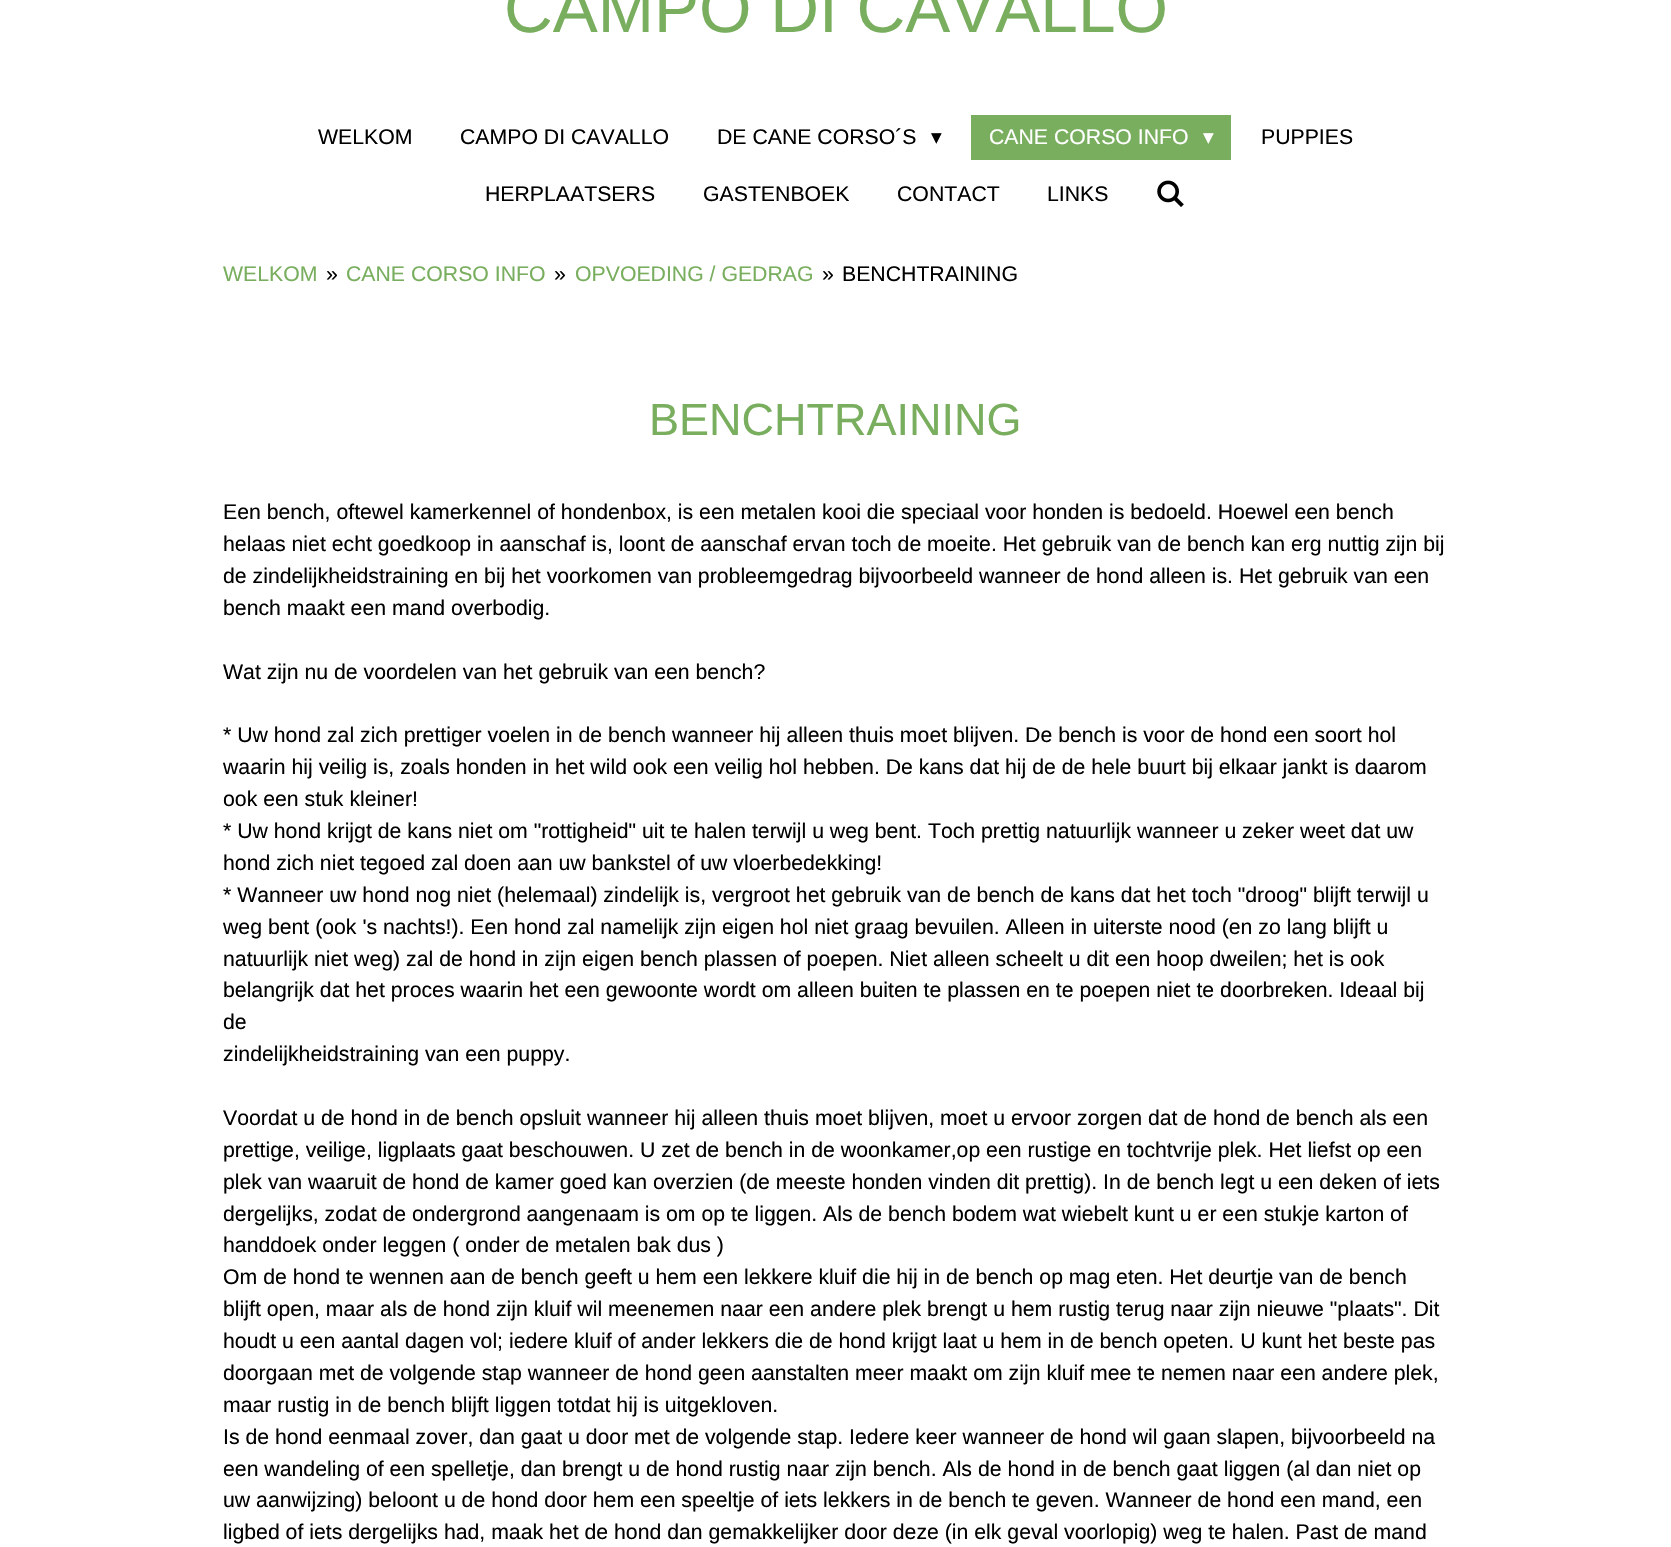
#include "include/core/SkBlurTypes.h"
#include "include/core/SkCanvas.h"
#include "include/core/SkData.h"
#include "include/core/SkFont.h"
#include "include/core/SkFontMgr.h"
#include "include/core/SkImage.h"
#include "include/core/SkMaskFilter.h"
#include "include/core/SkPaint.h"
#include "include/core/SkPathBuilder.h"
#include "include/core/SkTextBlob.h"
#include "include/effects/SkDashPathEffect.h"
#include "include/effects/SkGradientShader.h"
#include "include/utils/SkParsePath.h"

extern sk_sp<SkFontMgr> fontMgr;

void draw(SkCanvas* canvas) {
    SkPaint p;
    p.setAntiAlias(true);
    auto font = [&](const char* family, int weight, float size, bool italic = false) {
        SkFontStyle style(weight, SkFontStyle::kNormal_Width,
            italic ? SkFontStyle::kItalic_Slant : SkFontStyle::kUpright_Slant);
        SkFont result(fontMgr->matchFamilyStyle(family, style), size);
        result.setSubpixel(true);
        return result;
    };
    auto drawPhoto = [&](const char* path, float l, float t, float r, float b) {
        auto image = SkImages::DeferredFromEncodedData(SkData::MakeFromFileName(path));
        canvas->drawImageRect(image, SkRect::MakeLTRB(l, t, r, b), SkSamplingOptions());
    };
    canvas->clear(0xFFFFFFFF);
    auto font1 = font("Liberation Sans", 400, 67.5f);
    p.setColor(0xFF78AE5E);
    canvas->drawString("CAMPO DI CAVALLO", 504, 32, font1, p);
    auto font2 = font("Liberation Sans", 400, 21.25f);
    p.setColor(0xFF000000);
    {
        const struct { const char* s; float x, y; } items[] = {
            {"WELKOM", 318, 144},
            {"CAMPO DI CAVALLO", 460, 144},
            {"DE CANE CORSO´S", 717, 144},
        };
        for (auto [s, x, y] : items) {
            canvas->drawString(s, x, y, font2, p);
        }
    }
    auto font3 = font("DejaVu Sans", 400, 21.25f);
    canvas->drawString("▾", 931, 144, font3, p);
    p.setColor(0xFF78AE5E);
    canvas->drawRect(SkRect::MakeLTRB(971, 115, 1231, 160), p);
    p.setColor(0xFFFFFFFF);
    canvas->drawString("CANE CORSO INFO", 989, 144, font2, p);
    canvas->drawString("▾", 1203, 144, font3, p);
    p.setColor(0xFF000000);
    {
        const struct { const char* s; float x, y; } items[] = {
            {"PUPPIES", 1261, 144},
            {"HERPLAATSERS", 485, 201},
            {"GASTENBOEK", 703, 201},
            {"CONTACT", 897, 201},
            {"LINKS", 1047, 201},
        };
        for (auto [s, x, y] : items) {
            canvas->drawString(s, x, y, font2, p);
        }
    }
    drawPhoto("media/1.png", 1157, 180, 1184, 207);
    p.setColor(0xFF78AE5E);
    canvas->drawString("WELKOM", 223, 281, font2, p);
    p.setColor(0xFF000000);
    canvas->drawString("»", 326, 281, font2, p);
    p.setColor(0xFF78AE5E);
    canvas->drawString("CANE CORSO INFO", 346, 281, font2, p);
    p.setColor(0xFF000000);
    canvas->drawString("»", 554, 281, font2, p);
    p.setColor(0xFF78AE5E);
    canvas->drawString("OPVOEDING / GEDRAG", 575, 281, font2, p);
    p.setColor(0xFF000000);
    canvas->drawString("»", 822, 281, font2, p);
    canvas->drawString("BENCHTRAINING", 842, 281, font2, p);
    auto font4 = font("Liberation Sans", 400, 45);
    p.setColor(0xFF78AE5E);
    canvas->drawString("BENCHTRAINING", 649, 435, font4, p);
    p.setColor(0xFF000000);
    {
        const struct { const char* s; float x, y; } items[] = {
            {"Een bench, oftewel kamerkennel of hondenbox, is een metalen kooi die speciaal voor honden is bedoeld. Hoewel een bench", 223, 519},
            {"helaas niet echt goedkoop in aanschaf is, loont de aanschaf ervan toch de moeite. Het gebruik van de bench kan erg nuttig zijn bij", 223, 551},
            {"de zindelijkheidstraining en bij het voorkomen van probleemgedrag bijvoorbeeld wanneer de hond alleen is. Het gebruik van een", 223, 583},
            {"bench maakt een mand overbodig.", 223, 615},
            {"Wat zijn nu de voordelen van het gebruik van een bench?", 223, 679},
            {"* Uw hond zal zich prettiger voelen in de bench wanneer hij alleen thuis moet blijven. De bench is voor de hond een soort hol", 223, 742},
            {"waarin hij veilig is, zoals honden in het wild ook een veilig hol hebben. De kans dat hij de de hele buurt bij elkaar jankt is daarom", 223, 774},
            {"ook een stuk kleiner!", 223, 806},
            {"* Uw hond krijgt de kans niet om \"rottigheid\" uit te halen terwijl u weg bent. Toch prettig natuurlijk wanneer u zeker weet dat uw", 223, 838},
            {"hond zich niet tegoed zal doen aan uw bankstel of uw vloerbedekking!", 223, 870},
            {"* Wanneer uw hond nog niet (helemaal) zindelijk is, vergroot het gebruik van de bench de kans dat het toch \"droog\" blijft terwijl u", 223, 902},
            {"weg bent (ook 's nachts!). Een hond zal namelijk zijn eigen hol niet graag bevuilen. Alleen in uiterste nood (en zo lang blijft u", 223, 934},
            {"natuurlijk niet weg) zal de hond in zijn eigen bench plassen of poepen. Niet alleen scheelt u dit een hoop dweilen; het is ook", 223, 966},
            {"belangrijk dat het proces waarin het een gewoonte wordt om alleen buiten te plassen en te poepen niet te doorbreken. Ideaal bij", 223, 997},
            {"de", 223, 1029},
            {"zindelijkheidstraining van een puppy.", 223, 1061},
            {"Voordat u de hond in de bench opsluit wanneer hij alleen thuis moet blijven, moet u ervoor zorgen dat de hond de bench als een", 223, 1125},
            {"prettige, veilige, ligplaats gaat beschouwen. U zet de bench in de woonkamer,op een rustige en tochtvrije plek. Het liefst op een", 223, 1157},
            {"plek van waaruit de hond de kamer goed kan overzien (de meeste honden vinden dit prettig). In de bench legt u een deken of iets", 223, 1189},
            {"dergelijks, zodat de ondergrond aangenaam is om op te liggen. Als de bench bodem wat wiebelt kunt u er een stukje karton of", 223, 1221},
            {"handdoek onder leggen ( onder de metalen bak dus )", 223, 1252},
            {"Om de hond te wennen aan de bench geeft u hem een lekkere kluif die hij in de bench op mag eten. Het deurtje van de bench", 223, 1284},
            {"blijft open, maar als de hond zijn kluif wil meenemen naar een andere plek brengt u hem rustig terug naar zijn nieuwe \"plaats\". Dit", 223, 1316},
            {"houdt u een aantal dagen vol; iedere kluif of ander lekkers die de hond krijgt laat u hem in de bench opeten. U kunt het beste pas", 223, 1348},
            {"doorgaan met de volgende stap wanneer de hond geen aanstalten meer maakt om zijn kluif mee te nemen naar een andere plek,", 223, 1380},
            {"maar rustig in de bench blijft liggen totdat hij is uitgekloven.", 223, 1412},
            {"Is de hond eenmaal zover, dan gaat u door met de volgende stap. Iedere keer wanneer de hond wil gaan slapen, bijvoorbeeld na", 223, 1444},
            {"een wandeling of een spelletje, dan brengt u de hond rustig naar zijn bench. Als de hond in de bench gaat liggen (al dan niet op", 223, 1476},
            {"uw aanwijzing) beloont u de hond door hem een speeltje of iets lekkers in de bench te geven. Wanneer de hond een mand, een", 223, 1507},
            {"ligbed of iets dergelijks had, maak het de hond dan gemakkelijker door deze (in elk geval voorlopig) weg te halen. Past de mand", 223, 1539},
        };
        for (auto [s, x, y] : items) {
            canvas->drawString(s, x, y, font2, p);
        }
    }
}
